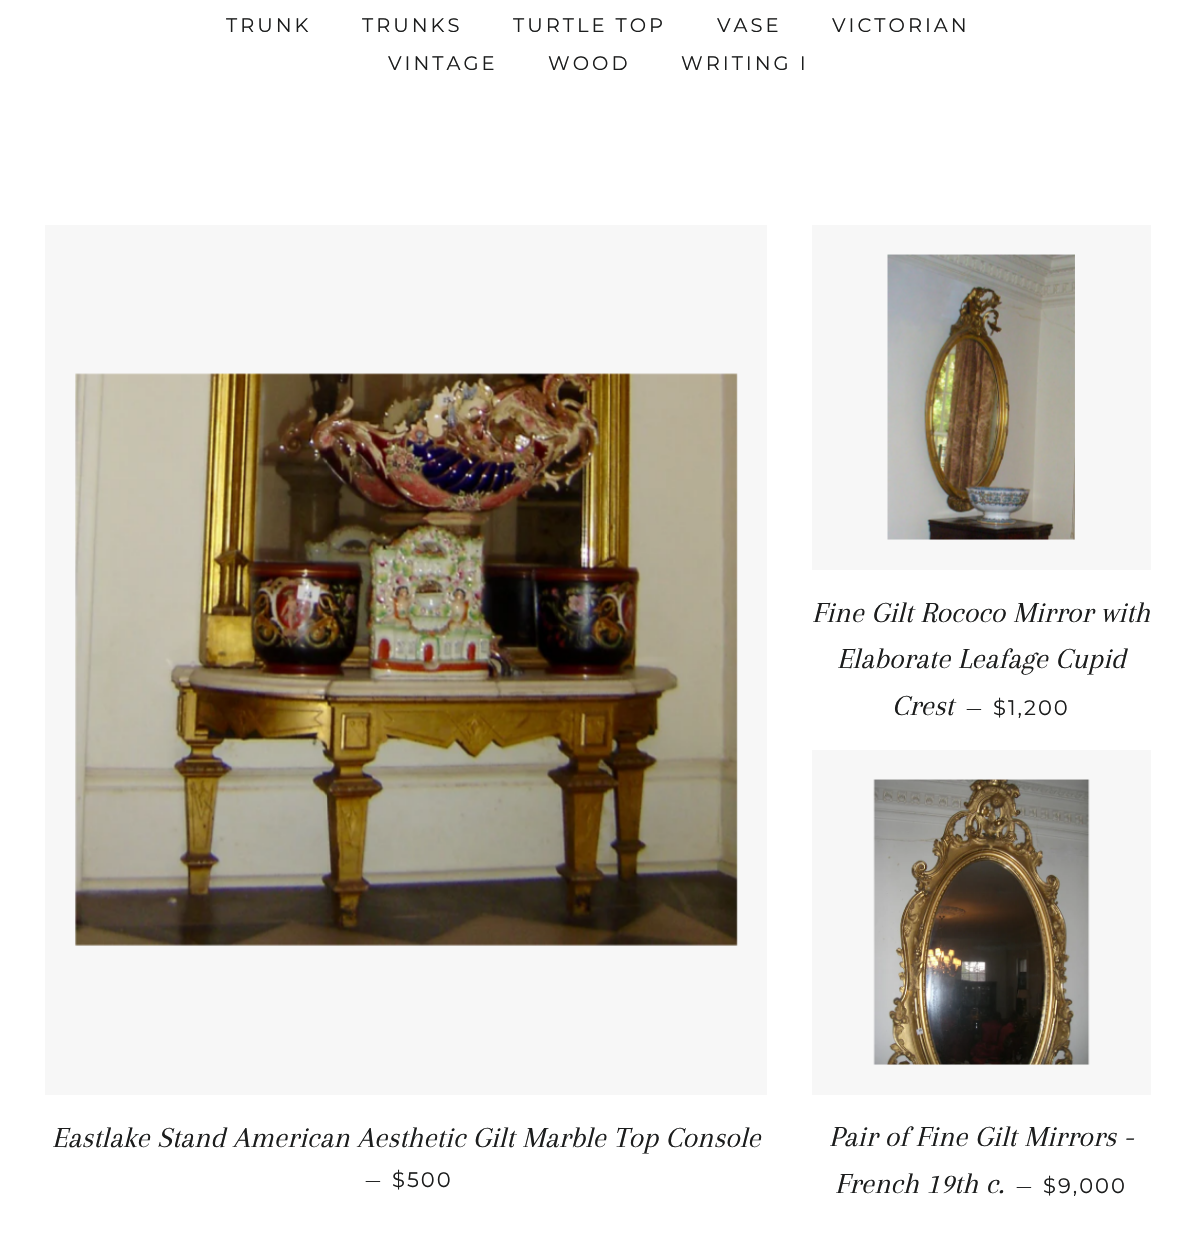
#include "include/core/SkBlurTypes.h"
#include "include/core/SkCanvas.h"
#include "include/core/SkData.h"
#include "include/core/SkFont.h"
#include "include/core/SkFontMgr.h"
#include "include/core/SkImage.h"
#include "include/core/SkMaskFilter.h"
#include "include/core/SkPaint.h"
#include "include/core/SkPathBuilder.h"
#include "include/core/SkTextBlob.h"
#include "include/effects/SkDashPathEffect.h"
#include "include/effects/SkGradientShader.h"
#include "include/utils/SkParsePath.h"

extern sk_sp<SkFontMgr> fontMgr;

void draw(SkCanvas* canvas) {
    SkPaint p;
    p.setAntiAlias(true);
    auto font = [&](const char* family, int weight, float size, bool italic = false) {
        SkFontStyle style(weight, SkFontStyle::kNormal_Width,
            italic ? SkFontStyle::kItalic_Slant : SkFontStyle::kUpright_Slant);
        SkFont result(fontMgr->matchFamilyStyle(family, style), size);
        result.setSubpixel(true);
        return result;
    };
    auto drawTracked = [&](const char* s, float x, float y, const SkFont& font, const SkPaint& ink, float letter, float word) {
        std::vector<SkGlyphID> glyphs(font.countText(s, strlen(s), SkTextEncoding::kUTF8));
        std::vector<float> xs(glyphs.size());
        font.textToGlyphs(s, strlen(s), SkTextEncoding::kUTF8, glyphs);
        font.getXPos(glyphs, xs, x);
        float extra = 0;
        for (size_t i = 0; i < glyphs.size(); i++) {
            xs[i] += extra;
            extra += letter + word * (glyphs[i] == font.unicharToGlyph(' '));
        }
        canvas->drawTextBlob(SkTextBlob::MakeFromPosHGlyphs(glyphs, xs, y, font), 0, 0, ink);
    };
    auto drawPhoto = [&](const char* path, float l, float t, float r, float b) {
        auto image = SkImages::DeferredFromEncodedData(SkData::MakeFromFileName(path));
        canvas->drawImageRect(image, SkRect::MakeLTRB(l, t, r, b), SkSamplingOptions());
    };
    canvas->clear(0xFFFFFFFF);
    auto font1 = font("Montserrat", 100, 19.5f);
    p.setColor(0xFF1C1D1D);
    {
        const struct { const char* s; float x, y; } items[] = {
            {"TRUNK", 226, 32},
            {"TRUNKS", 362, 32},
            {"TURTLE TOP", 513, 32},
            {"VASE", 717, 32},
            {"VICTORIAN", 832, 32},
            {"VINTAGE", 388, 70},
            {"WOOD", 548, 70},
            {"WRITING I", 681, 70},
        };
        for (auto [s, x, y] : items) {
            drawTracked(s, x, y, font1, p, 3, 0);
        }
    }
    p.setColor(0xFFF7F7F7);
    canvas->drawRect(SkRect::MakeLTRB(812, 225, 1151, 570), p);
    drawPhoto("media/1.png", 887, 254, 1075, 540);
    auto font2 = font("Arapey", 400, 30, true);
    p.setColor(0xFF1C1D1D);
    {
        const struct { const char* s; float x, y; } items[] = {
            {"Fine Gilt Rococo Mirror with", 812, 622},
            {"Elaborate Leafage Cupid", 837, 668},
            {"Crest", 892, 715},
        };
        for (auto [s, x, y] : items) {
            canvas->drawString(s, x, y, font2, p);
        }
    }
    auto font3 = font("Arapey", 400, 24);
    canvas->drawString("—", 966, 715, font3, p);
    auto font4 = font("Montserrat", 100, 21);
    drawTracked("$1,200", 993, 715, font4, p, 2, 0);
    p.setColor(0xFFF7F7F7);
    canvas->drawRect(SkRect::MakeLTRB(45, 225, 767, 1095), p);
    drawPhoto("media/2.png", 75, 373, 738, 946);
    p.setColor(0xFF1C1D1D);
    canvas->drawString("Eastlake Stand American Aesthetic Gilt Marble Top Console", 52, 1147, font2, p);
    canvas->drawString("—", 365, 1187, font3, p);
    drawTracked("$500", 392, 1187, font4, p, 2, 0);
    p.setColor(0xFFF7F7F7);
    canvas->drawRect(SkRect::MakeLTRB(812, 750, 1151, 1095), p);
    drawPhoto("media/3.png", 873, 779, 1090, 1065);
    p.setColor(0xFF1C1D1D);
    canvas->drawString("Pair of Fine Gilt Mirrors -", 829, 1146, font2, p);
    canvas->drawString("French 19th c.", 835, 1193, font2, p);
    canvas->drawString("—", 1016, 1193, font3, p);
    drawTracked("$9,000", 1043, 1193, font4, p, 2, 0);
}
